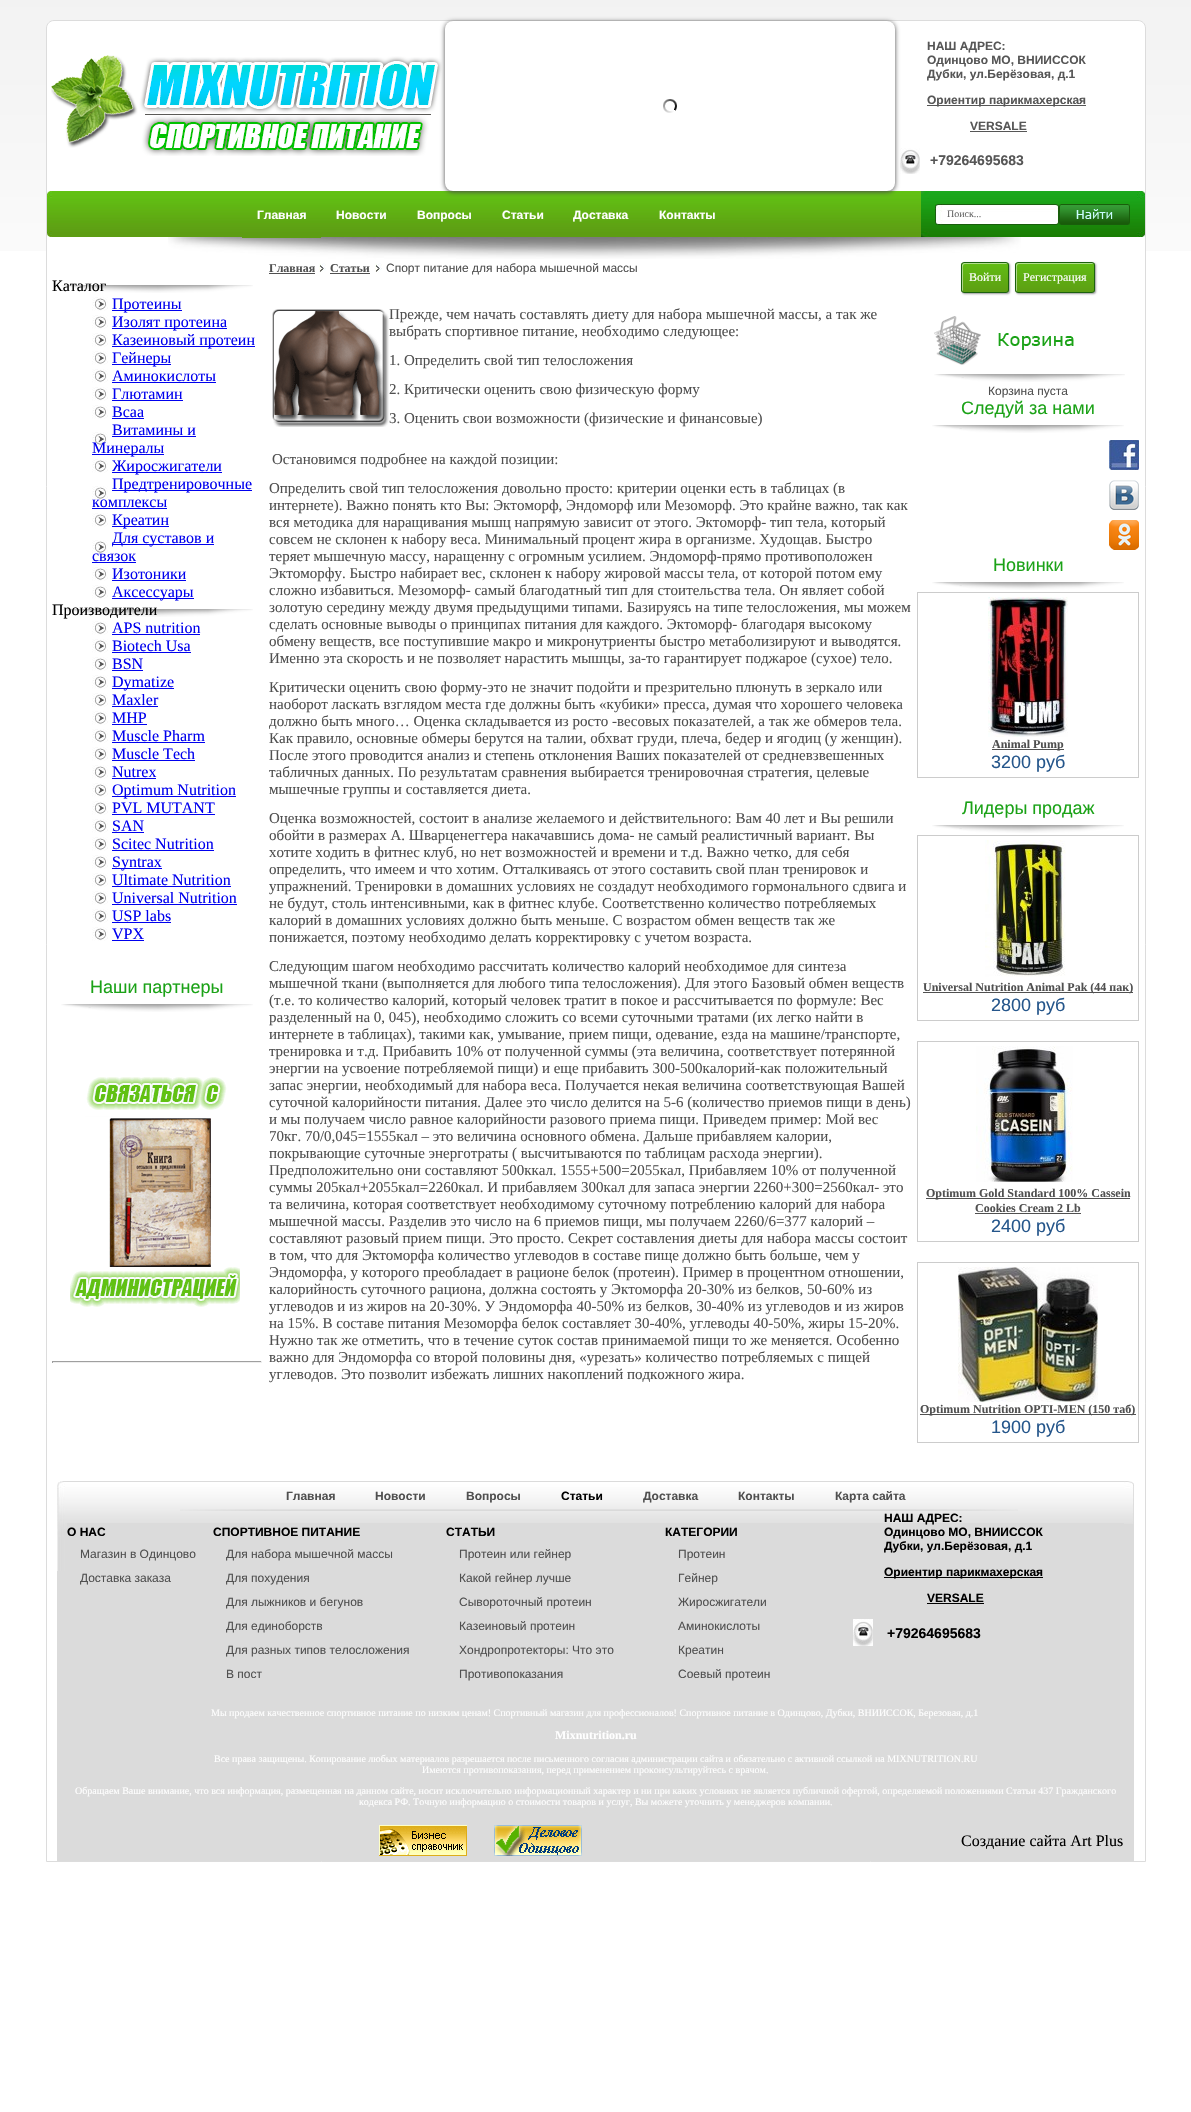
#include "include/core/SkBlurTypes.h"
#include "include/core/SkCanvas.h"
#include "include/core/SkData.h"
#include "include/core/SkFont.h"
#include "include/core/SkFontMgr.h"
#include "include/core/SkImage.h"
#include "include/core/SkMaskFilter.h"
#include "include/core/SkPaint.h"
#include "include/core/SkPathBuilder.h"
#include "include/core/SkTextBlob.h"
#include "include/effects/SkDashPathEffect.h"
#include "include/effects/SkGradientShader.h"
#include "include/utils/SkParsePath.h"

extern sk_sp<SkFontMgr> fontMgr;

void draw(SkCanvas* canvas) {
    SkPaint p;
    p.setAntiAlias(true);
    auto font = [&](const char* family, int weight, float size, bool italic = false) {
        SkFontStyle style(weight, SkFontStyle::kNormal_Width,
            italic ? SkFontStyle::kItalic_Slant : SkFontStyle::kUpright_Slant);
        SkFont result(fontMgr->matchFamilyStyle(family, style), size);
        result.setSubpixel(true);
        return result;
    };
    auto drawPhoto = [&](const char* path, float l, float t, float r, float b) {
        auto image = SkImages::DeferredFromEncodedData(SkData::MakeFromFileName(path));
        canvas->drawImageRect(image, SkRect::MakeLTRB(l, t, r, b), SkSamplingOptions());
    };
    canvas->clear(0xFFFFFFFF);
    drawPhoto("media/1.png", 0, 0, 1191, 251);
    p.setColor(0xFFFFFFFF);
    canvas->drawPath(SkPathBuilder().moveTo(54, 20.5f).lineTo(1138, 20.5f).cubicTo(1142, 20.5f, 1145.5f, 24, 1145.5f, 28).lineTo(1145.5f, 1861.5f).lineTo(46.5f, 1861.5f).lineTo(46.5f, 28).cubicTo(46.5f, 24, 50, 20.5f, 54, 20.5f).close().detach(), p);
    p.setStyle(SkPaint::kStroke_Style);
    p.setStrokeWidth(1);
    p.setColor(0xFFDCDCDC);
    canvas->drawPath(SkPathBuilder().moveTo(54, 20.5f).lineTo(1138, 20.5f).cubicTo(1142, 20.5f, 1145.5f, 24, 1145.5f, 28).lineTo(1145.5f, 1861.5f).lineTo(46.5f, 1861.5f).lineTo(46.5f, 28).cubicTo(46.5f, 24, 50, 20.5f, 54, 20.5f).close().detach(), p);
    drawPhoto("media/2.png", 51, 55, 442, 156);
    drawPhoto("media/4.png", 900, 148, 920, 174);
    drawPhoto("media/6.png", 52, 191, 921, 237);
    p.setStyle(SkPaint::kFill_Style);
    p.setColor(0xFF4A4A4A);
    p.setMaskFilter(SkMaskFilter::MakeBlur(kNormal_SkBlurStyle, 2.5f));
    canvas->drawRoundRect(SkRect::MakeLTRB(445, 22, 895, 192), 8, 8, p);
    p.setMaskFilter(nullptr);
    p.setColor(0xFFFFFFFF);
    canvas->drawRoundRect(SkRect::MakeLTRB(445, 21, 895, 191), 8, 8, p);
    drawPhoto("media/3.png", 663, 99, 677, 113);
    auto font1 = font("Liberation Sans", 700, 12);
    p.setColor(0xFF565656);
    {
        const struct { const char* s; float x, y; } items[] = {
            {"НАШ АДРЕС:", 927, 50},
            {"Одинцово МО, ВНИИССОК", 927, 64},
            {"Дубки, ул.Берёзовая, д.1", 927, 78},
        };
        for (auto [s, x, y] : items) {
            canvas->drawString(s, x, y, font1, p);
        }
    }
    canvas->drawRect(SkRect::MakeLTRB(927, 105, 1086, 106), p);
    canvas->drawString("Ориентир парикмахерская", 927, 104, font1, p);
    canvas->drawString("VERSALE", 970, 130, font1, p);
    canvas->drawRect(SkRect::MakeLTRB(970, 131, 1027, 132), p);
    auto font2 = font("Liberation Sans", 700, 14);
    canvas->drawString("+79264695683", 930, 165, font2, p);
    drawPhoto("media/5.png", 47, 191, 52, 237);
    drawPhoto("media/10.png", 168, 237, 1021, 259);
    p.setColor(0xFF5D9D13);
    canvas->drawRect(SkRect::MakeLTRB(242, 237, 321, 238), p);
    p.setColor(0xFFFFFFFF);
    {
        const struct { const char* s; float x, y; } items[] = {
            {"Главная", 257, 219},
            {"Новости", 336, 219},
            {"Вопросы", 417, 219},
            {"Статьи", 502, 219},
            {"Доставка", 573, 219},
            {"Контакты", 659, 219},
        };
        for (auto [s, x, y] : items) {
            canvas->drawString(s, x, y, font1, p);
        }
    }
    drawPhoto("media/7.png", 921, 191, 1145, 237);
    drawPhoto("media/8.png", 935, 204, 1059, 225);
    auto font3 = font("Liberation Serif", 400, 10);
    p.setColor(0xFF666666);
    canvas->drawString("Поиск...", 947, 217, font3, p);
    drawPhoto("media/9.png", 1059, 204, 1130, 225);
    drawPhoto("media/11.png", 61, 285, 253, 293);
    auto font4 = font("Liberation Serif", 400, 16);
    p.setColor(0xFF000000);
    canvas->drawString("Каталог", 52, 291, font4, p);
    drawPhoto("media/12.png", 92, 297, 108, 311);
    p.setColor(0xFF0000EE);
    canvas->drawRect(SkRect::MakeLTRB(112, 310, 182, 311), p);
    canvas->drawString("Протеины", 112, 309, font4, p);
    drawPhoto("media/12.png", 92, 315, 108, 329);
    canvas->drawRect(SkRect::MakeLTRB(112, 328, 227, 329), p);
    canvas->drawString("Изолят протеина", 112, 327, font4, p);
    drawPhoto("media/12.png", 92, 333, 108, 347);
    canvas->drawRect(SkRect::MakeLTRB(112, 346, 255, 347), p);
    canvas->drawString("Казеиновый протеин", 112, 345, font4, p);
    drawPhoto("media/12.png", 92, 351, 108, 365);
    canvas->drawRect(SkRect::MakeLTRB(112, 364, 171, 365), p);
    canvas->drawString("Гейнеры", 112, 363, font4, p);
    drawPhoto("media/12.png", 92, 369, 108, 383);
    canvas->drawString("Аминокислоты", 112, 381, font4, p);
    canvas->drawRect(SkRect::MakeLTRB(112, 382, 216, 383), p);
    drawPhoto("media/12.png", 92, 387, 108, 401);
    canvas->drawString("Глютамин", 112, 399, font4, p);
    canvas->drawRect(SkRect::MakeLTRB(112, 400, 183, 401), p);
    drawPhoto("media/12.png", 92, 405, 108, 419);
    canvas->drawString("Bcaa", 112, 417, font4, p);
    canvas->drawRect(SkRect::MakeLTRB(112, 418, 144, 419), p);
    drawPhoto("media/12.png", 92, 432, 108, 446);
    canvas->drawString("Витамины и", 112, 435, font4, p);
    canvas->drawRect(SkRect::MakeLTRB(112, 436, 196, 437), p);
    canvas->drawRect(SkRect::MakeLTRB(92, 454, 164, 455), p);
    canvas->drawString("Минералы", 92, 453, font4, p);
    drawPhoto("media/12.png", 92, 459, 108, 473);
    canvas->drawRect(SkRect::MakeLTRB(112, 472, 222, 473), p);
    canvas->drawString("Жиросжигатели", 112, 471, font4, p);
    drawPhoto("media/12.png", 92, 486, 108, 500);
    canvas->drawRect(SkRect::MakeLTRB(112, 490, 252, 491), p);
    canvas->drawString("Предтренировочные", 112, 489, font4, p);
    canvas->drawString("комплексы", 92, 507, font4, p);
    canvas->drawRect(SkRect::MakeLTRB(92, 508, 167, 509), p);
    drawPhoto("media/12.png", 92, 513, 108, 527);
    canvas->drawRect(SkRect::MakeLTRB(112, 526, 169, 527), p);
    canvas->drawString("Креатин", 112, 525, font4, p);
    drawPhoto("media/12.png", 92, 540, 108, 554);
    canvas->drawRect(SkRect::MakeLTRB(112, 544, 214, 545), p);
    canvas->drawString("Для суставов и", 112, 543, font4, p);
    canvas->drawString("связок", 92, 561, font4, p);
    canvas->drawRect(SkRect::MakeLTRB(92, 562, 136, 563), p);
    drawPhoto("media/12.png", 92, 567, 108, 581);
    canvas->drawString("Изотоники", 112, 579, font4, p);
    canvas->drawRect(SkRect::MakeLTRB(112, 580, 186, 581), p);
    drawPhoto("media/12.png", 92, 585, 108, 599);
    canvas->drawRect(SkRect::MakeLTRB(112, 598, 194, 599), p);
    canvas->drawString("Аксессуары", 112, 597, font4, p);
    drawPhoto("media/11.png", 61, 609, 253, 617);
    p.setColor(0xFF000000);
    canvas->drawString("Производители", 52, 615, font4, p);
    drawPhoto("media/12.png", 92, 621, 108, 635);
    p.setColor(0xFF0000EE);
    canvas->drawString("APS nutrition", 112, 633, font4, p);
    canvas->drawRect(SkRect::MakeLTRB(112, 634, 200, 635), p);
    drawPhoto("media/12.png", 92, 639, 108, 653);
    canvas->drawString("Biotech Usa", 112, 651, font4, p);
    canvas->drawRect(SkRect::MakeLTRB(112, 652, 191, 653), p);
    drawPhoto("media/12.png", 92, 657, 108, 671);
    canvas->drawString("BSN", 112, 669, font4, p);
    canvas->drawRect(SkRect::MakeLTRB(112, 670, 143, 671), p);
    drawPhoto("media/12.png", 92, 675, 108, 689);
    canvas->drawRect(SkRect::MakeLTRB(112, 688, 174, 689), p);
    canvas->drawString("Dymatize", 112, 687, font4, p);
    drawPhoto("media/12.png", 92, 693, 108, 707);
    canvas->drawString("Maxler", 112, 705, font4, p);
    canvas->drawRect(SkRect::MakeLTRB(112, 706, 158, 707), p);
    drawPhoto("media/12.png", 92, 711, 108, 725);
    canvas->drawString("MHP", 112, 723, font4, p);
    canvas->drawRect(SkRect::MakeLTRB(112, 724, 147, 725), p);
    drawPhoto("media/12.png", 92, 729, 108, 743);
    canvas->drawString("Muscle Pharm", 112, 741, font4, p);
    canvas->drawRect(SkRect::MakeLTRB(112, 742, 205, 743), p);
    drawPhoto("media/12.png", 92, 747, 108, 761);
    canvas->drawString("Muscle Tech", 112, 759, font4, p);
    canvas->drawRect(SkRect::MakeLTRB(112, 760, 195, 761), p);
    drawPhoto("media/12.png", 92, 765, 108, 779);
    canvas->drawString("Nutrex", 112, 777, font4, p);
    canvas->drawRect(SkRect::MakeLTRB(112, 778, 156, 779), p);
    drawPhoto("media/12.png", 92, 783, 108, 797);
    canvas->drawRect(SkRect::MakeLTRB(112, 796, 236, 797), p);
    canvas->drawString("Optimum Nutrition", 112, 795, font4, p);
    drawPhoto("media/12.png", 92, 801, 108, 815);
    canvas->drawString("PVL MUTANT", 112, 813, font4, p);
    canvas->drawRect(SkRect::MakeLTRB(112, 814, 215, 815), p);
    drawPhoto("media/12.png", 92, 819, 108, 833);
    canvas->drawString("SAN", 112, 831, font4, p);
    canvas->drawRect(SkRect::MakeLTRB(112, 832, 144, 833), p);
    drawPhoto("media/12.png", 92, 837, 108, 851);
    canvas->drawString("Scitec Nutrition", 112, 849, font4, p);
    canvas->drawRect(SkRect::MakeLTRB(112, 850, 214, 851), p);
    drawPhoto("media/12.png", 92, 855, 108, 869);
    canvas->drawRect(SkRect::MakeLTRB(112, 868, 162, 869), p);
    canvas->drawString("Syntrax", 112, 867, font4, p);
    drawPhoto("media/12.png", 92, 873, 108, 887);
    canvas->drawString("Ultimate Nutrition", 112, 885, font4, p);
    canvas->drawRect(SkRect::MakeLTRB(112, 886, 231, 887), p);
    drawPhoto("media/12.png", 92, 891, 108, 905);
    canvas->drawString("Universal Nutrition", 112, 903, font4, p);
    canvas->drawRect(SkRect::MakeLTRB(112, 904, 237, 905), p);
    drawPhoto("media/12.png", 92, 909, 108, 923);
    canvas->drawString("USP labs", 112, 921, font4, p);
    canvas->drawRect(SkRect::MakeLTRB(112, 922, 171, 923), p);
    drawPhoto("media/12.png", 92, 927, 108, 941);
    canvas->drawString("VPX", 112, 939, font4, p);
    canvas->drawRect(SkRect::MakeLTRB(112, 940, 144, 941), p);
    drawPhoto("media/11.png", 61, 1004, 253, 1012);
    auto font5 = font("Liberation Sans", 400, 18);
    p.setColor(0xFF1BA217);
    canvas->drawString("Наши партнеры", 90, 993, font5, p);
    drawPhoto("media/13.png", 70, 1077, 240, 1307);
    {
        const struct { float l, t, r, b; SkColor color; } items[] = {
            {52, 1361, 262, 1362, 0xFF9F9F9F},
            {261, 1361, 262, 1363, 0xFFEEEEEE},
            {52, 1362, 262, 1363, 0xFFEEEEEE},
            {52, 1361, 53, 1363, 0xFF9F9F9F},
        };
        for (auto [l, t, r, b, color] : items) {
            p.setColor(color);
            canvas->drawRect(SkRect::MakeLTRB(l, t, r, b), p);
        }
    }
    auto font6 = font("Liberation Serif", 700, 12);
    p.setColor(0xFF505050);
    canvas->drawString("Главная", 269, 272, font6, p);
    canvas->drawRect(SkRect::MakeLTRB(269, 273, 315, 274), p);
    drawPhoto("media/14.png", 319, 263, 326, 272);
    canvas->drawString("Статьи", 330, 272, font6, p);
    canvas->drawRect(SkRect::MakeLTRB(330, 273, 370, 274), p);
    drawPhoto("media/14.png", 375, 263, 382, 272);
    auto font7 = font("Liberation Sans", 400, 12);
    canvas->drawString("Спорт питание для набора мышечной массы", 386, 272, font7, p);
    drawPhoto("media/15.png", 272, 309, 389, 427);
    auto font8 = font("Liberation Serif", 400, 15);
    {
        const struct { const char* s; float x, y; } items[] = {
            {"Прежде, чем начать составлять диету для набора мышечной массы, а так же", 389, 319},
            {"выбрать спортивное питание, необходимо следующее:", 389, 336},
            {"1. Определить свой тип телосложения", 389, 365},
            {"2. Критически оценить свою физическую форму", 389, 394},
            {"3. Оценить свои возможности (физические и финансовые)", 389, 423},
            {"Остановимся подробнее на каждой позиции:", 272, 464},
            {"Определить свой тип телосложения довольно просто: критерии оценки есть в таблицах (в", 269, 493},
            {"интернете). Важно понять кто Вы: Эктоморф, Эндоморф или Мезоморф. Это крайне важно, так как", 269, 510},
            {"вся методика для наращивания мышц напрямую зависит от этого. Эктоморф- тип тела, который", 269, 527},
            {"совсем не склонен к набору веса. Минимальный процент жира в организме. Худощав. Быстро", 269, 544},
            {"теряет мышечную массу, наращенну с огромным усилием. Эндоморф-прямо противоположен", 269, 561},
            {"Эктоморфу. Быстро набирает вес, склонен к набору жировой массы тела, от которой потом ему", 269, 578},
            {"сложно избавиться. Мезоморф- самый благодатный тип для стоительства тела. Он являет собой", 269, 595},
            {"золотую середину между двумя предыдущими типами. Базируясь на типе телосложения, мы можем", 269, 612},
            {"сделать основные выводы о принципах питания для каждого. Эктоморф- благодаря высокому", 269, 629},
            {"обмену веществ, все поступившие макро и микронутриенты быстро метаболизируют и выводятся.", 269, 646},
            {"Именно эта скорость и не позволяет нарастить мышцы, за-то гарантирует поджарое (сухое) тело.", 269, 663},
            {"Критически оценить свою форму-это не значит подойти и презрительно плюнуть в зеркало или", 269, 692},
            {"наоборот ласкать взглядом места где должны быть «кубики» пресса, думая что хорошего человека", 269, 709},
            {"должно быть много… Оценка складывается из росто -весовых показателей, а так же обмеров тела.", 269, 726},
            {"Как правило, основные обмеры берутся на талии, обхват груди, плеча, бедер и ягодиц (у женщин).", 269, 743},
            {"После этого проводится анализ и степень отклонения Ваших показателей от средневзвешенных", 269, 760},
            {"табличных данных. По результатам сравнения выбирается тренировочная стратегия, целевые", 269, 777},
            {"мышечные группы и составляется диета.", 269, 794},
            {"Оценка возможностей, состоит в анализе желаемого и действительного: Вам 40 лет и Вы решили", 269, 823},
            {"обойти в размерах А. Шварценеггера накачавшись дома- не самый реалистичный вариант. Вы", 269, 840},
            {"хотите ходить в фитнес клуб, но нет возможностей и времени и т.д. Важно четко, для себя", 269, 857},
            {"определить, что имеем и что хотим. Отталкиваясь от этого составить свой план тренировок и", 269, 874},
            {"упражнений. Тренировки в домашних условиях не создадут необходимого гормонального сдвига и", 269, 891},
            {"не будут, столь интенсивными, как в фитнес клубе. Соответственно количество потребляемых", 269, 908},
            {"калорий в домашних условиях должно быть меньше. С возрастом обмен веществ так же", 269, 925},
            {"понижается, поэтому необходимо делать корректировку с учетом возраста.", 269, 942},
            {"Следующим шагом необходимо рассчитать количество калорий необходимое для синтеза", 269, 971},
            {"мышечной ткани (выполняется для любого типа телосложения). Для этого Базовый обмен веществ", 269, 988},
            {"(т.е. то количество калорий, который человек тратит в покое и рассчитывается по формуле: Вес", 269, 1005},
            {"разделенный на 0, 045), необходимо сложить со всеми суточными тратами (их легко найти в", 269, 1022},
            {"интернете в таблицах), такими как, умывание, прием пищи, одевание, езда на машине/транспорте,", 269, 1039},
            {"тренировка и т.д. Прибавить 10% от полученной суммы (эта величина, соответствует потерянной", 269, 1056},
            {"энергии на усвоение потребляемой пищи) и еще прибавить 300-500калорий-как положительный", 269, 1073},
            {"запас энергии, необходимый для набора веса. Получается некая величина соответствующая Вашей", 269, 1090},
            {"суточной калорийности питания. Далее это число делится на 5-6 (количество приемов пищи в день)", 269, 1107},
            {"и мы получаем число равное калорийности разового приема пищи. Приведем пример: Мой вес", 269, 1124},
            {"70кг. 70/0,045=1555кал – это величина основного обмена. Дальше прибавляем калории,", 269, 1141},
            {"покрывающие суточные энерготраты ( высчитываются по таблицам расхода энергии).", 269, 1158},
            {"Предположительно они составляют 500ккал. 1555+500=2055кал, Прибавляем 10% от полученной", 269, 1175},
            {"суммы 205кал+2055кал=2260кал. И прибавляем 300кал для запаса энергии 2260+300=2560кал- это", 269, 1192},
            {"та величина, которая соответствует необходимому суточному потреблению калорий для набора", 269, 1209},
            {"мышечной массы. Разделив это число на 6 приемов пищи, мы получаем 2260/6=377 калорий –", 269, 1226},
            {"составляют разовый прием пищи. Это просто. Секрет составления диеты для набора массы состоит", 269, 1243},
            {"в том, что для Эктоморфа количество углеводов в составе пище должно быть больше, чем у", 269, 1260},
            {"Эндоморфа, у которого преобладает в рационе белок (протеин). Пример в процентном отношении,", 269, 1277},
            {"калорийность суточного рациона, должна состоять у Эктоморфа 20-30% из белков, 50-60% из", 269, 1294},
            {"углеводов и из жиров на 20-30%. У Эндоморфа 40-50% из белков, 30-40% из углеводов и из жиров", 269, 1311},
            {"на 15%. В составе питания Мезоморфа белок составляет 30-40%, углеводы 40-50%, жиры 15-20%.", 269, 1328},
            {"Нужно так же отметить, что в течение суток состав принимаемой пищи то же меняется. Особенно", 269, 1345},
            {"важно для Эндоморфа со второй половины дня, «урезать» количество потребляемых с пищей", 269, 1362},
            {"углеводов. Это позволит избежать лишних накоплений подкожного жира.", 269, 1379},
        };
        for (auto [s, x, y] : items) {
            canvas->drawString(s, x, y, font8, p);
        }
    }
    p.setColor(0x66000000);
    p.setMaskFilter(SkMaskFilter::MakeBlur(kNormal_SkBlurStyle, 1));
    canvas->drawRoundRect(SkRect::MakeLTRB(962, 263, 1010, 294), 3, 3, p);
    p.setMaskFilter(nullptr);
    canvas->save();
    canvas->clipPath(SkPathBuilder().moveTo(964, 262).lineTo(1006, 262).cubicTo(1007.5f, 262, 1009, 263.5f, 1009, 265).lineTo(1009, 290).cubicTo(1009, 291.5f, 1007.5f, 293, 1006, 293).lineTo(964, 293).cubicTo(962.5f, 293, 961, 291.5f, 961, 290).lineTo(961, 265).cubicTo(961, 263.5f, 962.5f, 262, 964, 262).close().detach(), true);
    {
        const SkColor colors[] = {0xFF61BD13, 0xFF5D9E13};
        const float stops[] = {0, 1};
        const SkPoint ends[] = {{962, 263}, {962, 292}};
        p.setShader(SkGradientShader::MakeLinear(ends, colors, stops, 2, SkTileMode::kClamp));
        p.setAlpha(255);
    }
    canvas->drawRect(SkRect::MakeLTRB(961, 263, 1009, 292), p);
    canvas->restore();
    p.setShader(nullptr);
    p.setColor(0x80FFFFFF);
    canvas->drawPath(SkPathBuilder().moveTo(965, 264).lineTo(1008, 264).cubicTo(1008, 264, 1007, 263, 1006, 263).lineTo(964, 263).cubicTo(963, 263, 962, 264, 962, 265).lineTo(962, 290).cubicTo(962, 291, 963, 292, 963, 292).lineTo(963, 270).cubicTo(963, 269, 962, 264, 965, 264).close().detach(), p);
    p.setStyle(SkPaint::kStroke_Style);
    p.setColor(0xFF1B610E);
    canvas->drawRoundRect(SkRect::MakeLTRB(961.5f, 262.5f, 1008.5f, 292.5f), 2.5f, 2.5f, p);
    auto font9 = font("Liberation Serif", 400, 12);
    p.setStyle(SkPaint::kFill_Style);
    p.setColor(0xFFFFFFFF);
    canvas->drawString("Войти", 969, 281, font9, p);
    p.setColor(0x66000000);
    p.setMaskFilter(SkMaskFilter::MakeBlur(kNormal_SkBlurStyle, 1));
    canvas->drawRoundRect(SkRect::MakeLTRB(1016, 263, 1096, 294), 3, 3, p);
    p.setMaskFilter(nullptr);
    canvas->save();
    canvas->clipPath(SkPathBuilder().moveTo(1018, 262).lineTo(1092, 262).cubicTo(1093.5f, 262, 1095, 263.5f, 1095, 265).lineTo(1095, 290).cubicTo(1095, 291.5f, 1093.5f, 293, 1092, 293).lineTo(1018, 293).cubicTo(1016.5f, 293, 1015, 291.5f, 1015, 290).lineTo(1015, 265).cubicTo(1015, 263.5f, 1016.5f, 262, 1018, 262).close().detach(), true);
    {
        const SkColor colors[] = {0xFF61BD13, 0xFF5D9E13};
        const float stops[] = {0, 1};
        const SkPoint ends[] = {{1016, 263}, {1016, 292}};
        p.setShader(SkGradientShader::MakeLinear(ends, colors, stops, 2, SkTileMode::kClamp));
        p.setAlpha(255);
    }
    canvas->drawRect(SkRect::MakeLTRB(1015, 263, 1095, 292), p);
    canvas->restore();
    p.setShader(nullptr);
    p.setColor(0x80FFFFFF);
    canvas->drawPath(SkPathBuilder().moveTo(1019, 264).lineTo(1094, 264).cubicTo(1094, 264, 1093, 263, 1092, 263).lineTo(1018, 263).cubicTo(1017, 263, 1016, 264, 1016, 265).lineTo(1016, 290).cubicTo(1016, 291, 1017, 292, 1017, 292).lineTo(1017, 270).cubicTo(1017, 269, 1016, 264, 1019, 264).close().detach(), p);
    p.setStyle(SkPaint::kStroke_Style);
    p.setColor(0xFF1B610E);
    canvas->drawRoundRect(SkRect::MakeLTRB(1015.5f, 262.5f, 1094.5f, 292.5f), 2.5f, 2.5f, p);
    p.setStyle(SkPaint::kFill_Style);
    p.setColor(0xFFFFFFFF);
    canvas->drawString("Регистрация", 1023, 281, font9, p);
    drawPhoto("media/16.png", 934, 316, 1125, 382);
    p.setColor(0xFF505050);
    canvas->drawString("Корзина пуста", 988, 395, font7, p);
    drawPhoto("media/11.png", 932, 425, 1124, 433);
    p.setColor(0xFF1BA217);
    canvas->drawString("Следуй за нами", 961, 414, font5, p);
    drawPhoto("media/17.png", 1109, 440, 1139, 470);
    drawPhoto("media/18.png", 1109, 480, 1139, 510);
    drawPhoto("media/19.png", 1109, 520, 1139, 550);
    drawPhoto("media/11.png", 932, 582, 1124, 590);
    canvas->drawString("Новинки", 993, 571, font5, p);
    p.setStyle(SkPaint::kStroke_Style);
    p.setColor(0xFFCCCCCC);
    canvas->drawRect(SkRect::MakeLTRB(917.5f, 592.5f, 1138.5f, 777.5f), p);
    drawPhoto("media/20.png", 988, 597, 1068, 737);
    p.setStyle(SkPaint::kFill_Style);
    p.setColor(0xFF505050);
    canvas->drawRect(SkRect::MakeLTRB(992, 749, 1064, 750), p);
    canvas->drawString("Animal Pump", 992, 748, font6, p);
    p.setColor(0xFF25568B);
    canvas->drawString("3200 руб", 991, 768, font5, p);
    drawPhoto("media/11.png", 932, 825, 1124, 833);
    p.setColor(0xFF1BA217);
    canvas->drawString("Лидеры продаж", 962, 814, font5, p);
    p.setStyle(SkPaint::kStroke_Style);
    p.setColor(0xFFCCCCCC);
    canvas->drawRect(SkRect::MakeLTRB(917.5f, 835.5f, 1138.5f, 1020.5f), p);
    drawPhoto("media/21.png", 985, 840, 1066, 977);
    p.setStyle(SkPaint::kFill_Style);
    p.setColor(0xFF505050);
    canvas->drawRect(SkRect::MakeLTRB(923, 992, 1133, 993), p);
    canvas->drawString("Universal Nutrition Animal Pak (44 пак)", 923, 991, font6, p);
    p.setColor(0xFF25568B);
    canvas->drawString("2800 руб", 991, 1011, font5, p);
    p.setStyle(SkPaint::kStroke_Style);
    p.setColor(0xFFCCCCCC);
    canvas->drawRect(SkRect::MakeLTRB(917.5f, 1041.5f, 1138.5f, 1241.5f), p);
    drawPhoto("media/22.png", 976, 1046, 1073, 1182);
    p.setStyle(SkPaint::kFill_Style);
    p.setColor(0xFF505050);
    canvas->drawRect(SkRect::MakeLTRB(926, 1198, 1130, 1199), p);
    canvas->drawString("Optimum Gold Standard 100% Cassein", 926, 1197, font6, p);
    canvas->drawString("Cookies Cream 2 Lb", 975, 1212, font6, p);
    canvas->drawRect(SkRect::MakeLTRB(975, 1213, 1081, 1214), p);
    p.setColor(0xFF25568B);
    canvas->drawString("2400 руб", 991, 1232, font5, p);
    p.setStyle(SkPaint::kStroke_Style);
    p.setColor(0xFFCCCCCC);
    canvas->drawRect(SkRect::MakeLTRB(917.5f, 1262.5f, 1138.5f, 1442.5f), p);
    drawPhoto("media/23.png", 958, 1267, 1098, 1402);
    p.setStyle(SkPaint::kFill_Style);
    p.setColor(0xFF505050);
    canvas->drawRect(SkRect::MakeLTRB(920, 1414, 1136, 1415), p);
    canvas->drawString("Optimum Nutrition OPTI-MEN (150 таб)", 920, 1413, font6, p);
    p.setColor(0xFF25568B);
    canvas->drawString("1900 руб", 991, 1433, font5, p);
    p.setColor(0xFFDBDBDB);
    canvas->drawRect(SkRect::MakeLTRB(57, 1571, 67, 1861), p);
    drawPhoto("media/24.png", 57, 1481, 67, 1571);
    canvas->drawRect(SkRect::MakeLTRB(67, 1481, 1124, 1861), p);
    drawPhoto("media/25.png", 67, 1482, 1124, 1523);
    drawPhoto("media/26.png", 180, 1509, 1018, 1511);
    p.setColor(0xFF505050);
    {
        const struct { const char* s; float x, y; } items[] = {
            {"Главная", 286, 1500},
            {"Новости", 375, 1500},
            {"Вопросы", 466, 1500},
        };
        for (auto [s, x, y] : items) {
            canvas->drawString(s, x, y, font1, p);
        }
    }
    p.setColor(0xFF000000);
    canvas->drawString("Статьи", 561, 1500, font1, p);
    p.setColor(0xFF505050);
    {
        const struct { const char* s; float x, y; } items[] = {
            {"Доставка", 643, 1500},
            {"Контакты", 738, 1500},
            {"Карта сайта", 835, 1500},
        };
        for (auto [s, x, y] : items) {
            canvas->drawString(s, x, y, font1, p);
        }
    }
    p.setColor(0xFF000000);
    canvas->drawString("О НАС", 67, 1536, font1, p);
    p.setColor(0xFF505050);
    canvas->drawString("Магазин в Одинцово", 80, 1558, font7, p);
    canvas->drawString("Доставка заказа", 80, 1582, font7, p);
    p.setColor(0xFF000000);
    canvas->drawString("СПОРТИВНОЕ ПИТАНИЕ", 213, 1536, font1, p);
    p.setColor(0xFF505050);
    {
        const struct { const char* s; float x, y; } items[] = {
            {"Для набора мышечной массы", 226, 1558},
            {"Для похудения", 226, 1582},
            {"Для лыжников и бегунов", 226, 1606},
            {"Для единоборств", 226, 1630},
            {"Для разных типов телосложения", 226, 1654},
            {"В пост", 226, 1678},
        };
        for (auto [s, x, y] : items) {
            canvas->drawString(s, x, y, font7, p);
        }
    }
    p.setColor(0xFF000000);
    canvas->drawString("СТАТЬИ", 446, 1536, font1, p);
    p.setColor(0xFF505050);
    {
        const struct { const char* s; float x, y; } items[] = {
            {"Протеин или гейнер", 459, 1558},
            {"Какой гейнер лучше", 459, 1582},
            {"Сывороточный протеин", 459, 1606},
            {"Казеиновый протеин", 459, 1630},
            {"Хондропротекторы: Что это", 459, 1654},
            {"Противопоказания", 459, 1678},
        };
        for (auto [s, x, y] : items) {
            canvas->drawString(s, x, y, font7, p);
        }
    }
    p.setColor(0xFF000000);
    canvas->drawString("КАТЕГОРИИ", 665, 1536, font1, p);
    p.setColor(0xFF505050);
    {
        const struct { const char* s; float x, y; } items[] = {
            {"Протеин", 678, 1558},
            {"Гейнер", 678, 1582},
            {"Жиросжигатели", 678, 1606},
            {"Аминокислоты", 678, 1630},
            {"Креатин", 678, 1654},
            {"Соевый протеин", 678, 1678},
        };
        for (auto [s, x, y] : items) {
            canvas->drawString(s, x, y, font7, p);
        }
    }
    p.setColor(0xFF000000);
    {
        const struct { const char* s; float x, y; } items[] = {
            {"НАШ АДРЕС:", 884, 1522},
            {"Одинцово МО, ВНИИССОК", 884, 1536},
            {"Дубки, ул.Берёзовая, д.1", 884, 1550},
        };
        for (auto [s, x, y] : items) {
            canvas->drawString(s, x, y, font1, p);
        }
    }
    canvas->drawRect(SkRect::MakeLTRB(884, 1577, 1043, 1578), p);
    canvas->drawString("Ориентир парикмахерская", 884, 1576, font1, p);
    canvas->drawString("VERSALE", 927, 1602, font1, p);
    canvas->drawRect(SkRect::MakeLTRB(927, 1603, 984, 1604), p);
    drawPhoto("media/27.png", 853, 1619, 873, 1646);
    canvas->drawString("+79264695683", 887, 1638, font2, p);
    p.setColor(0xFFFFFFFF);
    canvas->drawString("Мы продаем качественное спортивное питание по низким ценам! Спортивный магазин для профессионалов! Спортивное питание в Одинцово, Дубки, ВНИИССОК, Березовая, д.1", 211, 1716, font3, p);
    canvas->drawString("Mixnutrition.ru", 555, 1739, font6, p);
    {
        const struct { const char* s; float x, y; } items[] = {
            {"Все права защищены. Копирование любых материалов разрешается после письменного согласия администрации сайта и обязательно c активной ссылкой на MIXNUTRITION.RU", 214, 1762},
            {"Имеются противопоказания, перед применением проконсультируйтесь с врачом.", 422, 1773},
            {"Обращаем Ваше внимание, что вся информация, размещенная на данном сайте, носит исключительно информационный характер и ни при каких условиях не является публичной офертой, определяемой положениями Статьи 437 Гражданского", 75, 1794},
            {"кодекса РФ. Точную информацию о стоимости товаров и услуг, Вы можете уточнить у менеджеров компании.", 359, 1805},
        };
        for (auto [s, x, y] : items) {
            canvas->drawString(s, x, y, font3, p);
        }
    }
    drawPhoto("media/28.png", 379, 1825, 467, 1856);
    drawPhoto("media/29.png", 494, 1825, 582, 1856);
    p.setColor(0xFF000000);
    canvas->drawString("Создание сайта Art Plus", 961, 1846, font4, p);
    p.setColor(0xFFDBDBDB);
    canvas->drawRect(SkRect::MakeLTRB(1124, 1524, 1134, 1861), p);
    drawPhoto("media/30.png", 1124, 1481, 1134, 1524);
}
